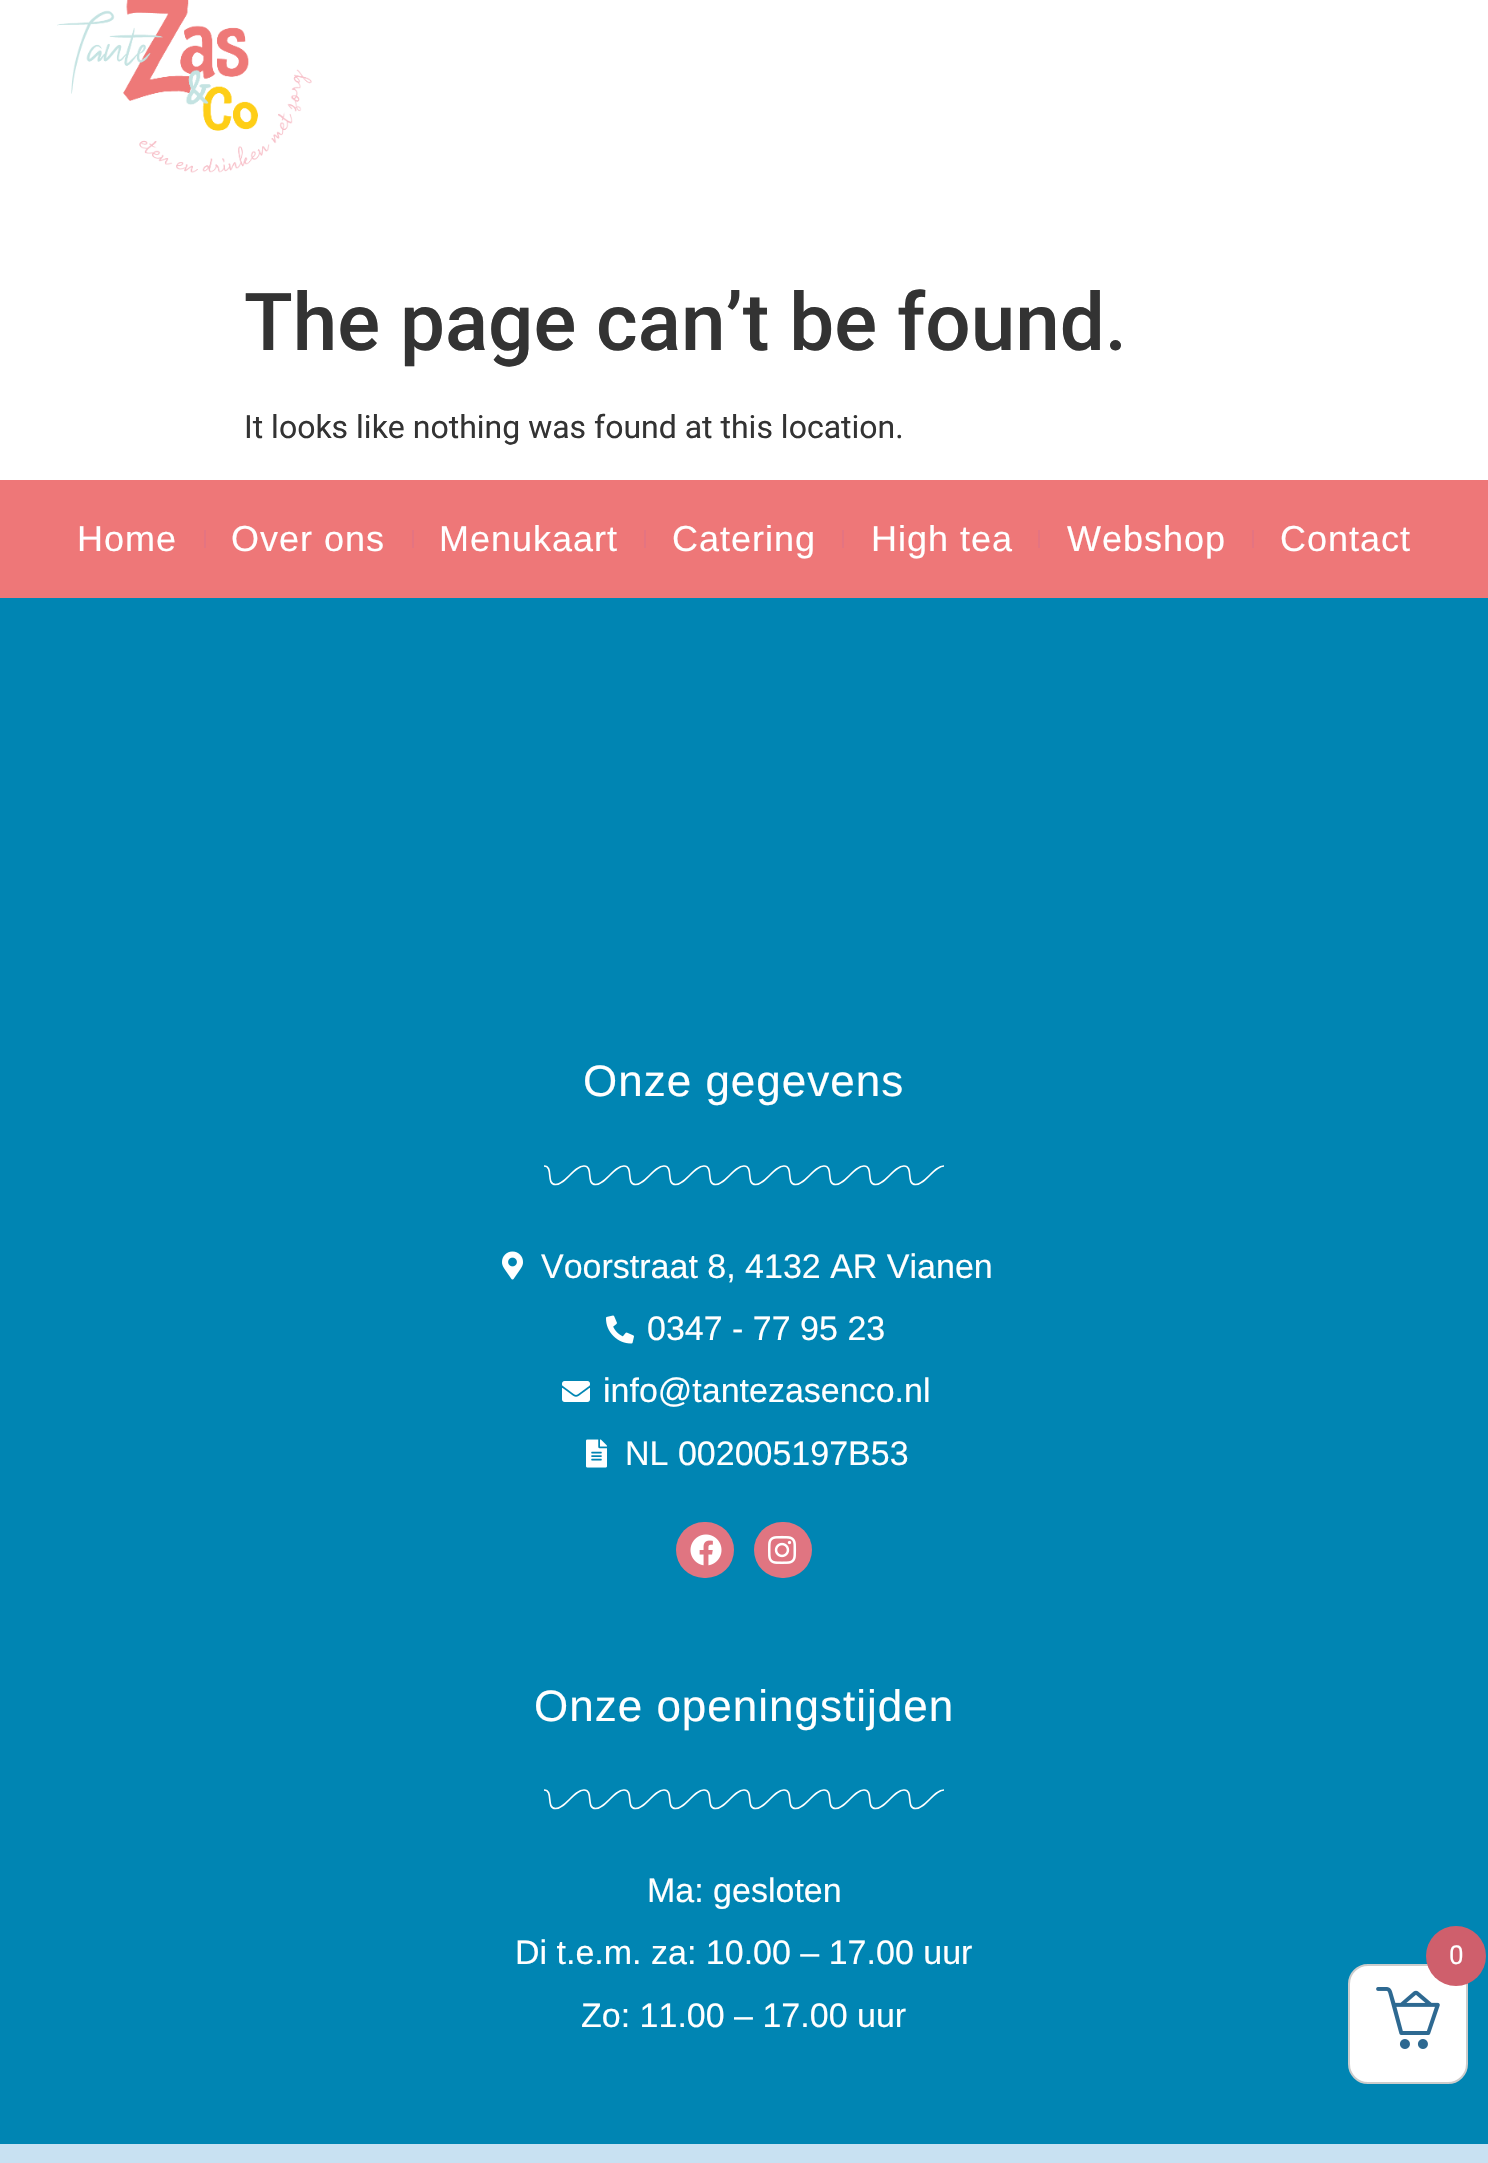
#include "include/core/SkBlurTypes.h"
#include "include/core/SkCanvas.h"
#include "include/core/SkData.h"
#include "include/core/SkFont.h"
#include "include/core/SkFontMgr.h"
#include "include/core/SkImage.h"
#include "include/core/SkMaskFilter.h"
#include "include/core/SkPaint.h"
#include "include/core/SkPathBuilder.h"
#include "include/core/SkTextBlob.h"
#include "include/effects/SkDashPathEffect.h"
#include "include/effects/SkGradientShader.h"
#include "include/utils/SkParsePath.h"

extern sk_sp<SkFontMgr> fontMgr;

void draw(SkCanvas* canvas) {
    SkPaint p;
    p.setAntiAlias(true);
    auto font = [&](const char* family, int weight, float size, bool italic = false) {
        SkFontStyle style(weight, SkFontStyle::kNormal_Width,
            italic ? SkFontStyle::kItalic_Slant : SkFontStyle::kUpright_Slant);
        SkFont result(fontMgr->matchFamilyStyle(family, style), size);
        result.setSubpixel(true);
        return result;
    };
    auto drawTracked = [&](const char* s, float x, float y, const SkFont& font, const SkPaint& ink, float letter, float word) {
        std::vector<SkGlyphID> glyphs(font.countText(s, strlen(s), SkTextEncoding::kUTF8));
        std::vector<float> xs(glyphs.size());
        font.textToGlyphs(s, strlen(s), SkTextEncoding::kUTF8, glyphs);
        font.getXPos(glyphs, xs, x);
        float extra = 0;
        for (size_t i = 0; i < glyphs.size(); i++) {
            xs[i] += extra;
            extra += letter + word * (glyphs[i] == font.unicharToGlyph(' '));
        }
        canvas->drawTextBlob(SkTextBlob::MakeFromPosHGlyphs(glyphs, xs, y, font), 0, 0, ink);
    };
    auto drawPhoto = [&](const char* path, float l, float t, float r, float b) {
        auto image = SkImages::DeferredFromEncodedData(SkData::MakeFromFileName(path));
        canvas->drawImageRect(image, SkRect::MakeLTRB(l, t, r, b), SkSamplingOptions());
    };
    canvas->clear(0xFFFFFFFF);
    drawPhoto("media/1.png", 57, 0, 312, 173);
    auto font1 = font("Roboto", 500, 80);
    p.setColor(0xFF333333);
    canvas->drawString("The page can’t be found.", 244, 350, font1, p);
    auto font2 = font("Roboto", 400, 32);
    canvas->drawString("It looks like nothing was found at this location.", 244, 438, font2, p);
    p.setColor(0xFFEE7778);
    canvas->drawRect(SkRect::MakeLTRB(0, 480, 1488, 598), p);
    auto font3 = font("Liberation Sans", 400, 36);
    p.setColor(0xFFFFFFFF);
    drawTracked("Home", 77, 551, font3, p, 1, 0);
    p.setColor(0xFFE47481);
    canvas->drawRect(SkRect::MakeLTRB(204, 530, 206, 548), p);
    p.setColor(0xFFFFFFFF);
    drawTracked("Over ons", 231, 551, font3, p, 1, 0);
    p.setColor(0xFFE47481);
    canvas->drawRect(SkRect::MakeLTRB(412, 530, 414, 548), p);
    p.setColor(0xFFFFFFFF);
    drawTracked("Menukaart", 439, 551, font3, p, 1, 0);
    p.setColor(0xFFE47481);
    canvas->drawRect(SkRect::MakeLTRB(644, 530, 646, 548), p);
    p.setColor(0xFFFFFFFF);
    drawTracked("Catering", 672, 551, font3, p, 1, 0);
    p.setColor(0xFFE47481);
    canvas->drawRect(SkRect::MakeLTRB(842, 530, 844, 548), p);
    p.setColor(0xFFFFFFFF);
    drawTracked("High tea", 871, 551, font3, p, 1, 0);
    p.setColor(0xFFE47481);
    canvas->drawRect(SkRect::MakeLTRB(1038, 530, 1040, 548), p);
    p.setColor(0xFFFFFFFF);
    drawTracked("Webshop", 1067, 551, font3, p, 1, 0);
    p.setColor(0xFFE47481);
    canvas->drawRect(SkRect::MakeLTRB(1252, 530, 1254, 548), p);
    p.setColor(0xFFFFFFFF);
    drawTracked("Contact", 1280, 551, font3, p, 1, 0);
    p.setColor(0xFF0085B3);
    canvas->drawRect(SkRect::MakeLTRB(0, 598, 1488, 2144), p);
    auto font4 = font("Liberation Sans", 400, 44);
    p.setColor(0xFFFFFFFF);
    drawTracked("Onze gegevens", 583, 1096, font4, p, 1, 0);
    drawPhoto("media/2.png", 544, 1165, 944, 1186);
    drawPhoto("media/3.png", 502, 1251, 523, 1280);
    auto font5 = font("Liberation Sans", 400, 34);
    canvas->drawString("Voorstraat 8, 4132 AR Vianen", 541, 1278, font5, p);
    drawPhoto("media/4.png", 606, 1315, 634, 1344);
    canvas->drawString("0347 - 77 95 23", 647, 1340, font5, p);
    drawPhoto("media/5.png", 562, 1381, 590, 1402);
    canvas->drawString("info@tantezasenco.nl", 603, 1402, font5, p);
    drawPhoto("media/6.png", 586, 1439, 607, 1468);
    canvas->drawString("NL 002005197B53", 625, 1465, font5, p);
    p.setColor(0xFFE07581);
    canvas->drawRoundRect(SkRect::MakeLTRB(676, 1522, 734, 1578), 28, 28, p);
    drawPhoto("media/7.png", 690, 1534, 722, 1566);
    canvas->drawRoundRect(SkRect::MakeLTRB(754, 1522, 812, 1578), 28, 28, p);
    drawPhoto("media/8.png", 768, 1535, 797, 1564);
    p.setColor(0xFFFFFFFF);
    drawTracked("Onze openingstijden", 534, 1721, font4, p, 1, 0);
    drawPhoto("media/2.png", 544, 1789, 944, 1810);
    {
        const struct { const char* s; float x, y; } items[] = {
            {"Ma: gesloten", 647, 1902},
            {"Di t.e.m. za: 10.00 – 17.00 uur", 515, 1964},
            {"Zo: 11.00 – 17.00 uur", 581, 2027},
        };
        for (auto [s, x, y] : items) {
            canvas->drawString(s, x, y, font5, p);
        }
    }
    p.setColor(0xFFC8E1F2);
    canvas->drawRect(SkRect::MakeLTRB(0, 2144, 1488, 2163), p);
    p.setColor(0xFFFFFFFF);
    canvas->drawRoundRect(SkRect::MakeLTRB(1349, 1965, 1467, 2083), 19, 19, p);
    p.setStyle(SkPaint::kStroke_Style);
    p.setStrokeWidth(2);
    p.setColor(0xFFCCCCCC);
    canvas->drawRoundRect(SkRect::MakeLTRB(1349, 1965, 1467, 2083), 19, 19, p);
    p.setStyle(SkPaint::kFill_Style);
    p.setColor(0xFFCF5F6C);
    canvas->drawCircle(1456, 1956, 30, p);
    auto font6 = font("Roboto", 400, 26);
    p.setColor(0xFFFFFFFF);
    canvas->drawString("0", 1449, 1964, font6, p);
    drawPhoto("media/9.png", 1376, 1987, 1440, 2049);
}
